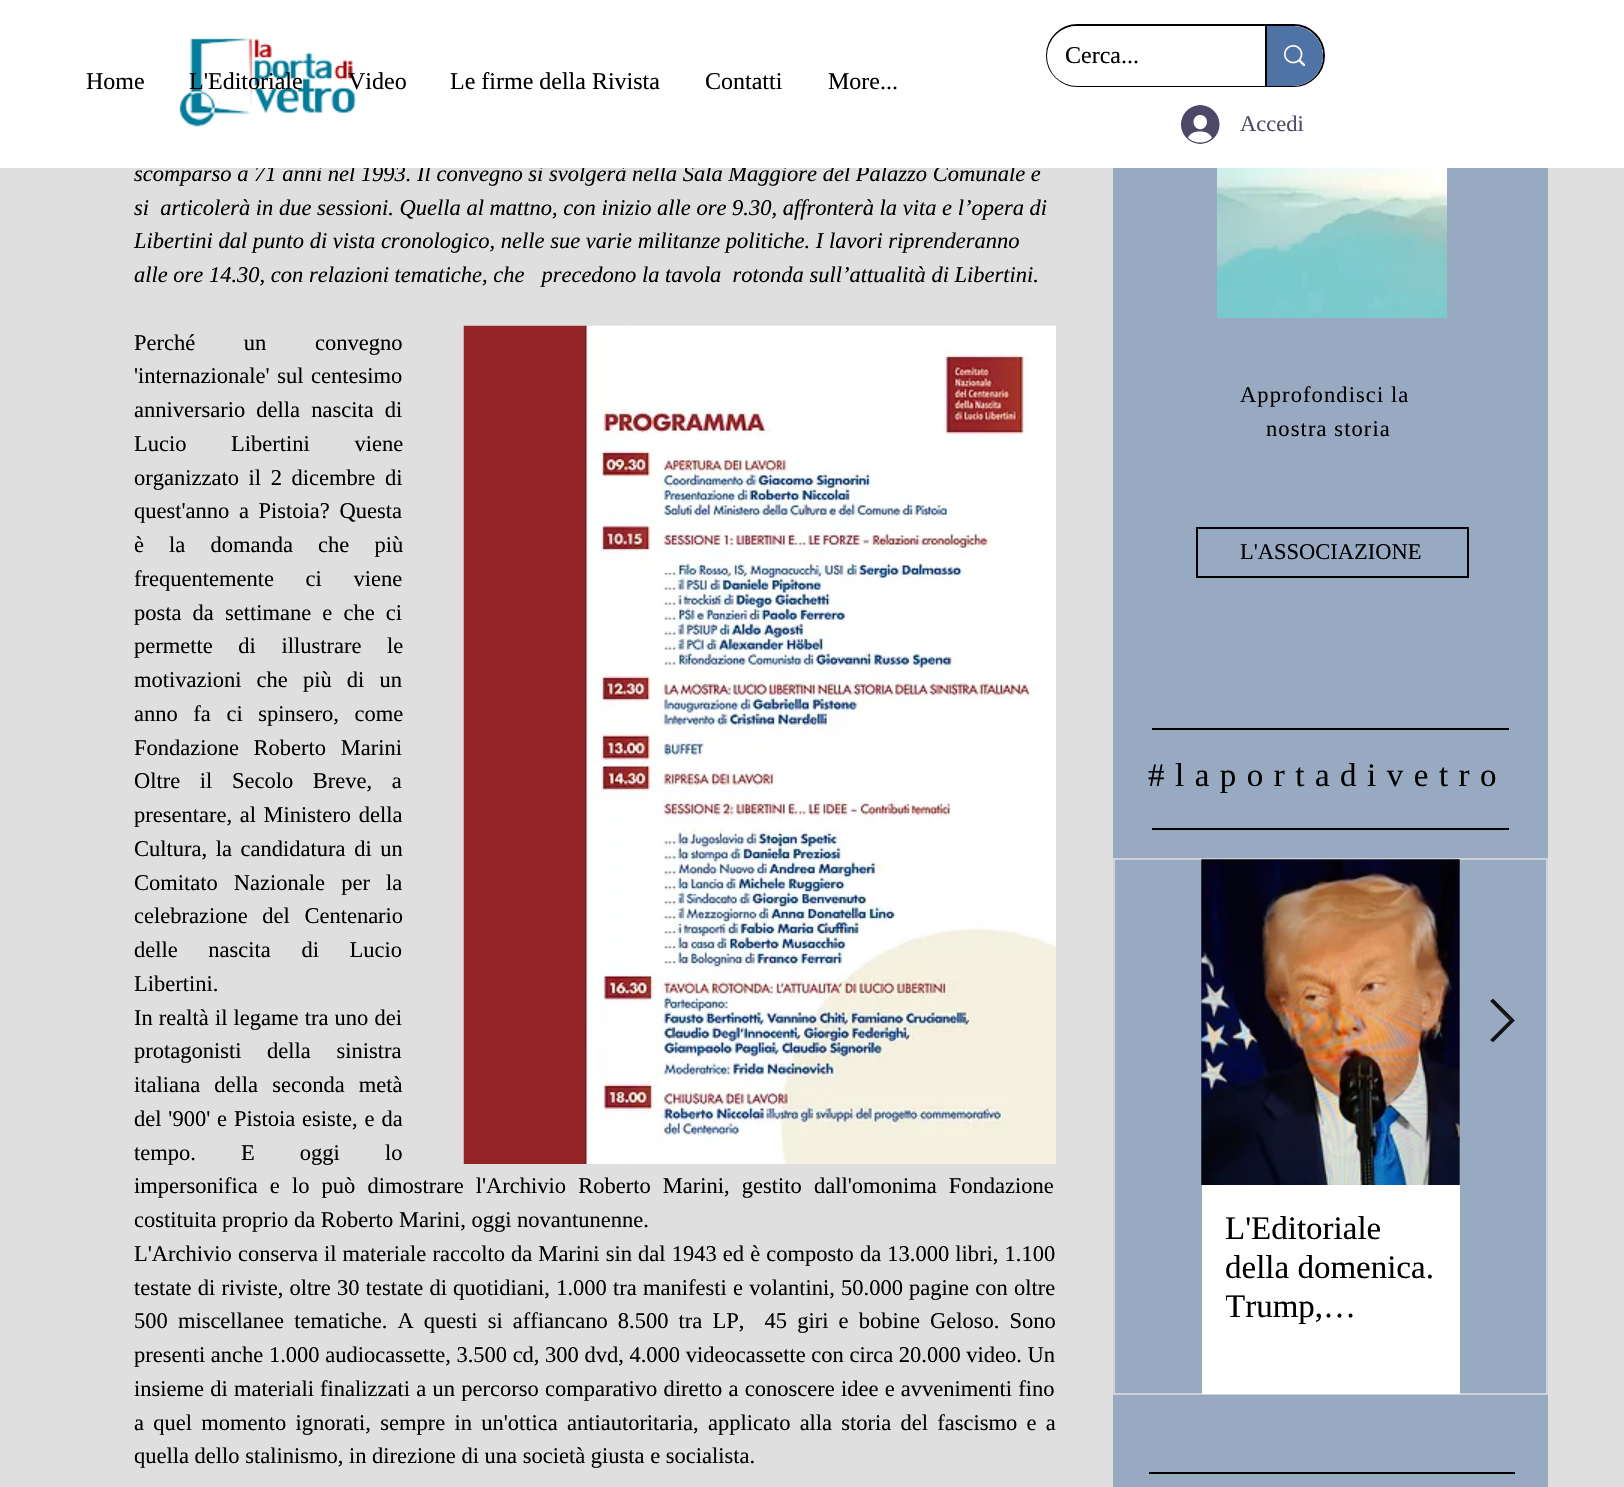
#include "include/core/SkBlurTypes.h"
#include "include/core/SkCanvas.h"
#include "include/core/SkData.h"
#include "include/core/SkFont.h"
#include "include/core/SkFontMgr.h"
#include "include/core/SkImage.h"
#include "include/core/SkMaskFilter.h"
#include "include/core/SkPaint.h"
#include "include/core/SkPathBuilder.h"
#include "include/core/SkTextBlob.h"
#include "include/effects/SkDashPathEffect.h"
#include "include/effects/SkGradientShader.h"
#include "include/utils/SkParsePath.h"

extern sk_sp<SkFontMgr> fontMgr;

void draw(SkCanvas* canvas) {
    SkPaint p;
    p.setAntiAlias(true);
    auto font = [&](const char* family, int weight, float size, bool italic = false) {
        SkFontStyle style(weight, SkFontStyle::kNormal_Width,
            italic ? SkFontStyle::kItalic_Slant : SkFontStyle::kUpright_Slant);
        SkFont result(fontMgr->matchFamilyStyle(family, style), size);
        result.setSubpixel(true);
        return result;
    };
    auto drawTracked = [&](const char* s, float x, float y, const SkFont& font, const SkPaint& ink, float letter, float word) {
        std::vector<SkGlyphID> glyphs(font.countText(s, strlen(s), SkTextEncoding::kUTF8));
        std::vector<float> xs(glyphs.size());
        font.textToGlyphs(s, strlen(s), SkTextEncoding::kUTF8, glyphs);
        font.getXPos(glyphs, xs, x);
        float extra = 0;
        for (size_t i = 0; i < glyphs.size(); i++) {
            xs[i] += extra;
            extra += letter + word * (glyphs[i] == font.unicharToGlyph(' '));
        }
        canvas->drawTextBlob(SkTextBlob::MakeFromPosHGlyphs(glyphs, xs, y, font), 0, 0, ink);
    };
    auto drawPhoto = [&](const char* path, float l, float t, float r, float b) {
        auto image = SkImages::DeferredFromEncodedData(SkData::MakeFromFileName(path));
        canvas->drawImageRect(image, SkRect::MakeLTRB(l, t, r, b), SkSamplingOptions());
    };
    canvas->clear(0xFFDFDFDF);
    auto font1 = font("Liberation Serif", 400, 22.5f, true);
    p.setColor(0xFF000000);
    canvas->drawString("scomparso a 71 anni nel 1993. Il convegno si svolgerà nella Sala Maggiore del Palazzo Comunale e", 134, 181, font1, p);
    p.setColor(0xFFFFFFFF);
    canvas->drawRect(SkRect::MakeLTRB(0, 0, 1624, 168), p);
    drawPhoto("media/1.png", 179, 37, 356, 127);
    p.setStyle(SkPaint::kStroke_Style);
    p.setStrokeWidth(2);
    p.setColor(0xFF000000);
    canvas->drawRoundRect(SkRect::MakeLTRB(1047, 25, 1324, 86), 30.5f, 30.5f, p);
    p.setStyle(SkPaint::kFill_Style);
    p.setColor(0xFFFFFFFF);
    canvas->drawRoundRect(SkRect::MakeLTRB(1047, 26, 1323, 86), 30, 30, p);
    auto font2 = font("Liberation Serif", 400, 24);
    p.setColor(0xFF000000);
    canvas->drawString("Cerca...", 1065, 63, font2, p);
    p.setColor(0xFF5073A5);
    canvas->drawPath(SkPathBuilder().moveTo(1265, 26).lineTo(1293, 26).cubicTo(1309.5f, 26, 1323, 39.5f, 1323, 56).cubicTo(1323, 72.5f, 1309.5f, 86, 1293, 86).lineTo(1265, 86).close().detach(), p);
    p.setColor(0xFF000000);
    canvas->drawRect(SkRect::MakeLTRB(1265, 26, 1267, 86), p);
    drawPhoto("media/2.png", 1284, 45, 1305, 66);
    {
        const struct { const char* s; float x, y; } items[] = {
            {"Home", 86, 89},
            {"L'Editoriale", 189, 89},
            {"Video", 348, 89},
            {"Le firme della Rivista", 450, 89},
            {"Contatti", 705, 89},
            {"More...", 828, 89},
        };
        for (auto [s, x, y] : items) {
            canvas->drawString(s, x, y, font2, p);
        }
    }
    drawPhoto("media/3.png", 1181, 105, 1220, 144);
    auto font3 = font("Liberation Serif", 400, 22.5f);
    p.setColor(0xFF4F4768);
    canvas->drawString("Accedi", 1240, 131, font3, p);
    p.setColor(0xFF000000);
    {
        const struct { const char* s; float x, y; } items[] = {
            {"si  articolerà in due sessioni. Quella al mattno, con inizio alle ore 9.30, affronterà la vita e l’opera di", 134, 215},
            {"Libertini dal punto di vista cronologico, nelle sue varie militanze politiche. I lavori riprenderanno", 134, 248},
            {"alle ore 14.30, con relazioni tematiche, che   precedono la tavola  rotonda sull’attualità di Libertini.", 134, 282},
        };
        for (auto [s, x, y] : items) {
            canvas->drawString(s, x, y, font1, p);
        }
    }
    drawTracked("Perché un convegno", 134, 350, font3, p, 0, 43);
    drawTracked("'internazionale' sul centesimo", 134, 383, font3, p, 0, 2);
    drawTracked("anniversario della nascita di", 134, 417, font3, p, 0, 5.5f);
    drawTracked("Lucio Libertini viene", 134, 451, font3, p, 0, 39);
    drawTracked("organizzato il 2 dicembre di", 134, 485, font3, p, 0, 4);
    drawTracked("quest'anno a Pistoia? Questa", 134, 518, font3, p, 0, 4);
    drawTracked("è la domanda che più", 134, 552, font3, p, 0, 19.5f);
    drawTracked("frequentemente ci viene", 134, 586, font3, p, 0, 26);
    drawTracked("posta da settimane e che ci", 134, 620, font3, p, 0, 5.5f);
    drawTracked("permette di illustrare le", 134, 653, font3, p, 0, 20);
    drawTracked("motivazioni che più di un", 134, 687, font3, p, 0, 9.5f);
    drawTracked("anno fa ci spinsero, come", 134, 721, font3, p, 0, 10);
    drawTracked("Fondazione Roberto Marini", 134, 755, font3, p, 0, 9);
    drawTracked("Oltre il Secolo Breve, a", 134, 788, font3, p, 0, 14);
    drawTracked("presentare, al Ministero della", 134, 822, font3, p, 0, 2);
    drawTracked("Cultura, la candidatura di un", 134, 856, font3, p, 0, 3);
    drawTracked("Comitato Nazionale per la", 134, 890, font3, p, 0, 10.5f);
    drawTracked("celebrazione del Centenario", 134, 923, font3, p, 0, 9);
    drawTracked("delle nascita di Lucio", 134, 957, font3, p, 0, 25);
    canvas->drawString("Libertini.", 134, 991, font3, p);
    drawPhoto("media/4.png", 463, 325, 1056, 1164);
    drawTracked("In realtà il legame tra uno dei", 134, 1025, font3, p, 0, 0.5f);
    drawTracked("protagonisti della sinistra", 134, 1058, font3, p, 0, 20);
    drawTracked("italiana della seconda metà", 134, 1092, font3, p, 0, 8.5f);
    drawTracked("del '900' e Pistoia esiste, e da", 134, 1126, font3, p, 0, 1.25f);
    drawTracked("tempo. E oggi lo", 134, 1160, font3, p, 0, 39.5f);
    drawTracked("impersonifica e lo può dimostrare l'Archivio Roberto Marini, gestito dall'omonima Fondazione", 134, 1193, font3, p, 0, 6.5f);
    canvas->drawString("costituita proprio da Roberto Marini, oggi novantunenne.", 134, 1227, font3, p);
    drawTracked("L'Archivio conserva il materiale raccolto da Marini sin dal 1943 ed è composto da 13.000 libri, 1.100", 134, 1261, font3, p, 0, 0.5f);
    drawTracked("testate di riviste, oltre 30 testate di quotidiani, 1.000 tra manifesti e volantini, 50.000 pagine con oltre", 134, 1295, font3, p, 0, 0.6f);
    drawTracked("500 miscellanee tematiche. A questi si affiancano 8.500 tra LP,  45 giri e bobine Geloso. Sono", 134, 1328, font3, p, 0, 4.5f);
    canvas->drawString("presenti anche 1.000 audiocassette, 3.500 cd, 300 dvd, 4.000 videocassette con circa 20.000 video. Un", 134, 1362, font3, p);
    drawTracked("insieme di materiali finalizzati a un percorso comparativo diretto a conoscere idee e avvenimenti fino", 134, 1396, font3, p, 0, 0.6f);
    drawTracked("a quel momento ignorati, sempre in un'ottica antiautoritaria, applicato alla storia del fascismo e a", 134, 1430, font3, p, 0, 3.6f);
    canvas->drawString("quella dello stalinismo, in direzione di una società giusta e socialista.", 134, 1463, font3, p);
    p.setColor(0xFF98A9C2);
    canvas->drawRect(SkRect::MakeLTRB(1113, 168, 1548, 1487), p);
    drawPhoto("media/5.png", 1217, 168, 1447, 318);
    p.setColor(0xFF000000);
    drawTracked("Approfondisci la", 1240, 402, font3, p, 1.1f, 0);
    drawTracked("nostra storia", 1266, 436, font3, p, 1.1f, 0);
    p.setStyle(SkPaint::kStroke_Style);
    canvas->drawRect(SkRect::MakeLTRB(1197, 528, 1468, 577), p);
    p.setStyle(SkPaint::kFill_Style);
    canvas->drawString("L'ASSOCIAZIONE", 1240, 559, font3, p);
    canvas->drawRect(SkRect::MakeLTRB(1152, 728, 1509, 730), p);
    auto font4 = font("Liberation Serif", 400, 33);
    drawTracked("#laportadivetro", 1148, 786, font4, p, 10.5f, 0);
    canvas->drawRect(SkRect::MakeLTRB(1152, 828, 1509, 830), p);
    p.setStyle(SkPaint::kStroke_Style);
    p.setColor(0xFFCDD2D8);
    canvas->drawRect(SkRect::MakeLTRB(1114, 859, 1547, 1394), p);
    p.setStyle(SkPaint::kFill_Style);
    p.setColor(0xFF0F1113);
    canvas->drawPath(SkPathBuilder().moveTo(1491, 1001).lineTo(1493, 999).lineTo(1514, 1020).lineTo(1493, 1042).lineTo(1491, 1040).lineTo(1511, 1020).close().detach(), p);
    p.setStyle(SkPaint::kStroke_Style);
    p.setStrokeWidth(1.2f);
    canvas->drawPath(SkPathBuilder().moveTo(1491, 1001).lineTo(1493, 999.5f).lineTo(1514, 1020.5f).lineTo(1493, 1041.5f).lineTo(1491, 1040).lineTo(1510.5f, 1020.5f).close().detach(), p);
    drawPhoto("media/6.png", 1201, 859, 1460, 1185);
    drawPhoto("media/7.png", 1201, 859, 1460, 1185);
    p.setStyle(SkPaint::kFill_Style);
    p.setColor(0xFFFFFFFF);
    canvas->drawRect(SkRect::MakeLTRB(1202, 1185, 1460, 1394), p);
    canvas->save();
    canvas->clipRect(SkRect::MakeLTRB(1226, 1209, 1436, 1326));
    p.setColor(0xFF000000);
    canvas->drawString("L'Editoriale", 1225, 1239, font4, p);
    canvas->restore();
    canvas->drawString("della domenica.", 1225, 1278, font4, p);
    canvas->save();
    canvas->clipRect(SkRect::MakeLTRB(1226, 1209, 1436, 1326));
    canvas->drawString("Trump,…", 1225, 1317, font4, p);
    canvas->restore();
    canvas->drawRect(SkRect::MakeLTRB(1149, 1472, 1515, 1474), p);
}
